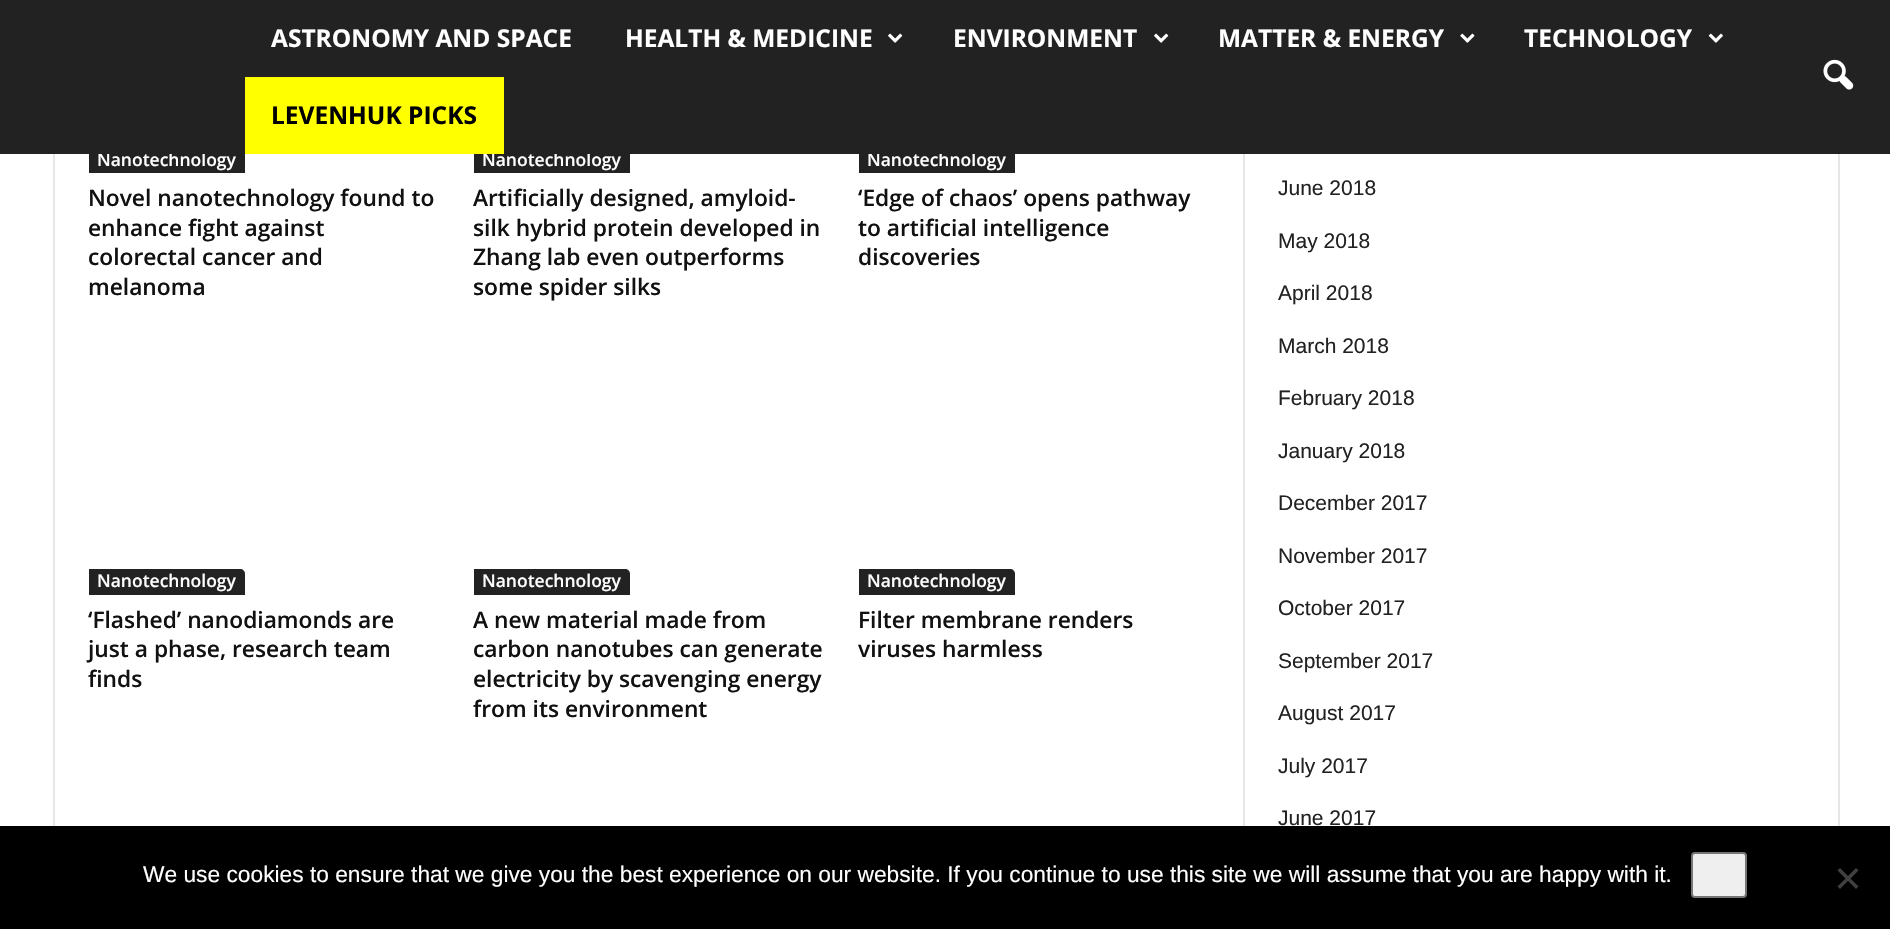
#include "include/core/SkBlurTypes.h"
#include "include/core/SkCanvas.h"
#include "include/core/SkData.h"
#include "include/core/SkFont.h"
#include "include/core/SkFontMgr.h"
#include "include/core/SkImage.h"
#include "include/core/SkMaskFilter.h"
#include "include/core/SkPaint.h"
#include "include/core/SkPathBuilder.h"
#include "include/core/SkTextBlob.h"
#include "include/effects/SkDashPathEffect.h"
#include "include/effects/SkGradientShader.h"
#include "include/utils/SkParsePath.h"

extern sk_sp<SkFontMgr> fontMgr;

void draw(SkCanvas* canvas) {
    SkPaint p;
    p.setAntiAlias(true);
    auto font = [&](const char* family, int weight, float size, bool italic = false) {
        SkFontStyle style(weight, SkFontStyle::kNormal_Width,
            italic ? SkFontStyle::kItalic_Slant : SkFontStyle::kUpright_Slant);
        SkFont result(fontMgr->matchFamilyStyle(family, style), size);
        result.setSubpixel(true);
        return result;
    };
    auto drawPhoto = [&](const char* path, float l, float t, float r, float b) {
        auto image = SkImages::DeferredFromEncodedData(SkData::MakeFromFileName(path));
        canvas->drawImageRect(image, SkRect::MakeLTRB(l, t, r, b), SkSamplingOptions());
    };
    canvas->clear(0xFFFFFFFF);
    p.setColor(0xFF222222);
    canvas->drawRect(SkRect::MakeLTRB(89, 154, 245, 173), p);
    auto font1 = font("Open Sans", 600, 17.5f);
    p.setColor(0xFFFFFFFF);
    canvas->drawString("Nanotechnology", 97, 166, font1, p);
    p.setColor(0xFF222222);
    canvas->drawRect(SkRect::MakeLTRB(474, 154, 630, 173), p);
    p.setColor(0xFFFFFFFF);
    canvas->drawString("Nanotechnology", 482, 166, font1, p);
    p.setColor(0xFF222222);
    canvas->drawRect(SkRect::MakeLTRB(859, 154, 1015, 173), p);
    p.setColor(0xFFFFFFFF);
    canvas->drawString("Nanotechnology", 867, 166, font1, p);
    p.setColor(0xFF222222);
    canvas->drawRect(SkRect::MakeLTRB(0, 0, 1890, 154), p);
    auto font2 = font("Open Sans", 700, 24.5f);
    p.setColor(0xFFFFFFFF);
    canvas->drawString("ASTRONOMY AND SPACE", 271, 47, font2, p);
    canvas->drawString("HEALTH & MEDICINE", 625, 47, font2, p);
    drawPhoto("media/1.png", 888, 33, 903, 43);
    canvas->drawString("ENVIRONMENT", 953, 47, font2, p);
    drawPhoto("media/1.png", 1154, 33, 1169, 43);
    canvas->drawString("MATTER & ENERGY", 1218, 47, font2, p);
    drawPhoto("media/2.png", 1460, 33, 1475, 43);
    canvas->drawString("TECHNOLOGY", 1524, 47, font2, p);
    drawPhoto("media/3.png", 1708, 33, 1723, 43);
    p.setColor(0xFFFFFF00);
    canvas->drawRect(SkRect::MakeLTRB(245, 77, 504, 154), p);
    p.setColor(0xFF000000);
    canvas->drawString("LEVENHUK PICKS", 271, 124, font2, p);
    drawPhoto("media/4.png", 1823, 59, 1854, 90);
    p.setColor(0xFFE6E6E6);
    canvas->drawRect(SkRect::MakeLTRB(53, 154, 55, 826), p);
    auto font3 = font("Open Sans", 600, 22.75f);
    p.setColor(0xFF111111);
    {
        const struct { const char* s; float x, y; } items[] = {
            {"Novel nanotechnology found to", 88, 206},
            {"enhance fight against", 88, 236},
            {"colorectal cancer and", 88, 265},
            {"melanoma", 88, 295},
            {"Artificially designed, amyloid-", 473, 206},
            {"silk hybrid protein developed in", 473, 236},
            {"Zhang lab even outperforms", 473, 265},
            {"some spider silks", 473, 295},
            {"‘Edge of chaos’ opens pathway", 858, 206},
            {"to artificial intelligence", 858, 236},
            {"discoveries", 858, 265},
        };
        for (auto [s, x, y] : items) {
            canvas->drawString(s, x, y, font3, p);
        }
    }
    p.setColor(0xFF222222);
    canvas->drawPath(SkPathBuilder().moveTo(89, 569).lineTo(240, 569).cubicTo(243, 569, 245, 571, 245, 574).lineTo(245, 595).lineTo(89, 595).close().detach(), p);
    p.setColor(0xFFFFFFFF);
    canvas->drawString("Nanotechnology", 97, 587, font1, p);
    p.setColor(0xFF111111);
    {
        const struct { const char* s; float x, y; } items[] = {
            {"‘Flashed’ nanodiamonds are", 88, 628},
            {"just a phase, research team", 88, 657},
            {"finds", 88, 687},
        };
        for (auto [s, x, y] : items) {
            canvas->drawString(s, x, y, font3, p);
        }
    }
    p.setColor(0xFF222222);
    canvas->drawPath(SkPathBuilder().moveTo(474, 569).lineTo(625, 569).cubicTo(628, 569, 630, 571, 630, 574).lineTo(630, 595).lineTo(474, 595).close().detach(), p);
    p.setColor(0xFFFFFFFF);
    canvas->drawString("Nanotechnology", 482, 587, font1, p);
    p.setColor(0xFF111111);
    {
        const struct { const char* s; float x, y; } items[] = {
            {"A new material made from", 473, 628},
            {"carbon nanotubes can generate", 473, 657},
            {"electricity by scavenging energy", 473, 687},
            {"from its environment", 473, 717},
        };
        for (auto [s, x, y] : items) {
            canvas->drawString(s, x, y, font3, p);
        }
    }
    p.setColor(0xFF222222);
    canvas->drawPath(SkPathBuilder().moveTo(859, 569).lineTo(1010, 569).cubicTo(1013, 569, 1015, 571, 1015, 574).lineTo(1015, 595).lineTo(859, 595).close().detach(), p);
    p.setColor(0xFFFFFFFF);
    canvas->drawString("Nanotechnology", 867, 587, font1, p);
    p.setColor(0xFF111111);
    canvas->drawString("Filter membrane renders", 858, 628, font3, p);
    canvas->drawString("viruses harmless", 858, 657, font3, p);
    p.setColor(0xFFE6E6E6);
    canvas->drawRect(SkRect::MakeLTRB(1243, 154, 1245, 826), p);
    auto font4 = font("Liberation Sans", 400, 21);
    p.setColor(0xFF222222);
    {
        const struct { const char* s; float x, y; } items[] = {
            {"June 2018", 1278, 195},
            {"May 2018", 1278, 248},
            {"April 2018", 1278, 300},
            {"March 2018", 1278, 353},
            {"February 2018", 1278, 405},
            {"January 2018", 1278, 458},
            {"December 2017", 1278, 510},
            {"November 2017", 1278, 563},
            {"October 2017", 1278, 615},
            {"September 2017", 1278, 668},
            {"August 2017", 1278, 720},
            {"July 2017", 1278, 773},
            {"June 2017", 1278, 825},
        };
        for (auto [s, x, y] : items) {
            canvas->drawString(s, x, y, font4, p);
        }
    }
    p.setColor(0xFFE6E6E6);
    canvas->drawRect(SkRect::MakeLTRB(1838, 154, 1840, 826), p);
    p.setColor(0xFF000000);
    canvas->drawRect(SkRect::MakeLTRB(0, 826, 1890, 929), p);
    auto font5 = font("Liberation Sans", 400, 22.75f);
    p.setColor(0xFFFFFFFF);
    canvas->drawString("We use cookies to ensure that we give you the best experience on our website. If you continue to use this site we will assume that you are happy with it.", 143, 882, font5, p);
    p.setColor(0xFFEFEFEF);
    canvas->drawRoundRect(SkRect::MakeLTRB(1692, 853, 1746, 897), 3, 3, p);
    p.setStyle(SkPaint::kStroke_Style);
    p.setStrokeWidth(2);
    p.setColor(0xFF767676);
    canvas->drawRoundRect(SkRect::MakeLTRB(1692, 853, 1746, 897), 3, 3, p);
    p.setStyle(SkPaint::kFill_Style);
    p.setColor(0xFF404040);
    canvas->drawPath(SkPathBuilder().moveTo(1856, 868).lineTo(1858.5f, 870.5f).lineTo(1840, 889).lineTo(1837.5f, 886.5f).close().detach(), p);
    canvas->drawPath(SkPathBuilder().moveTo(1837.5f, 870.5f).lineTo(1840, 868).lineTo(1858.5f, 886.5f).lineTo(1856, 889).close().detach(), p);
}
